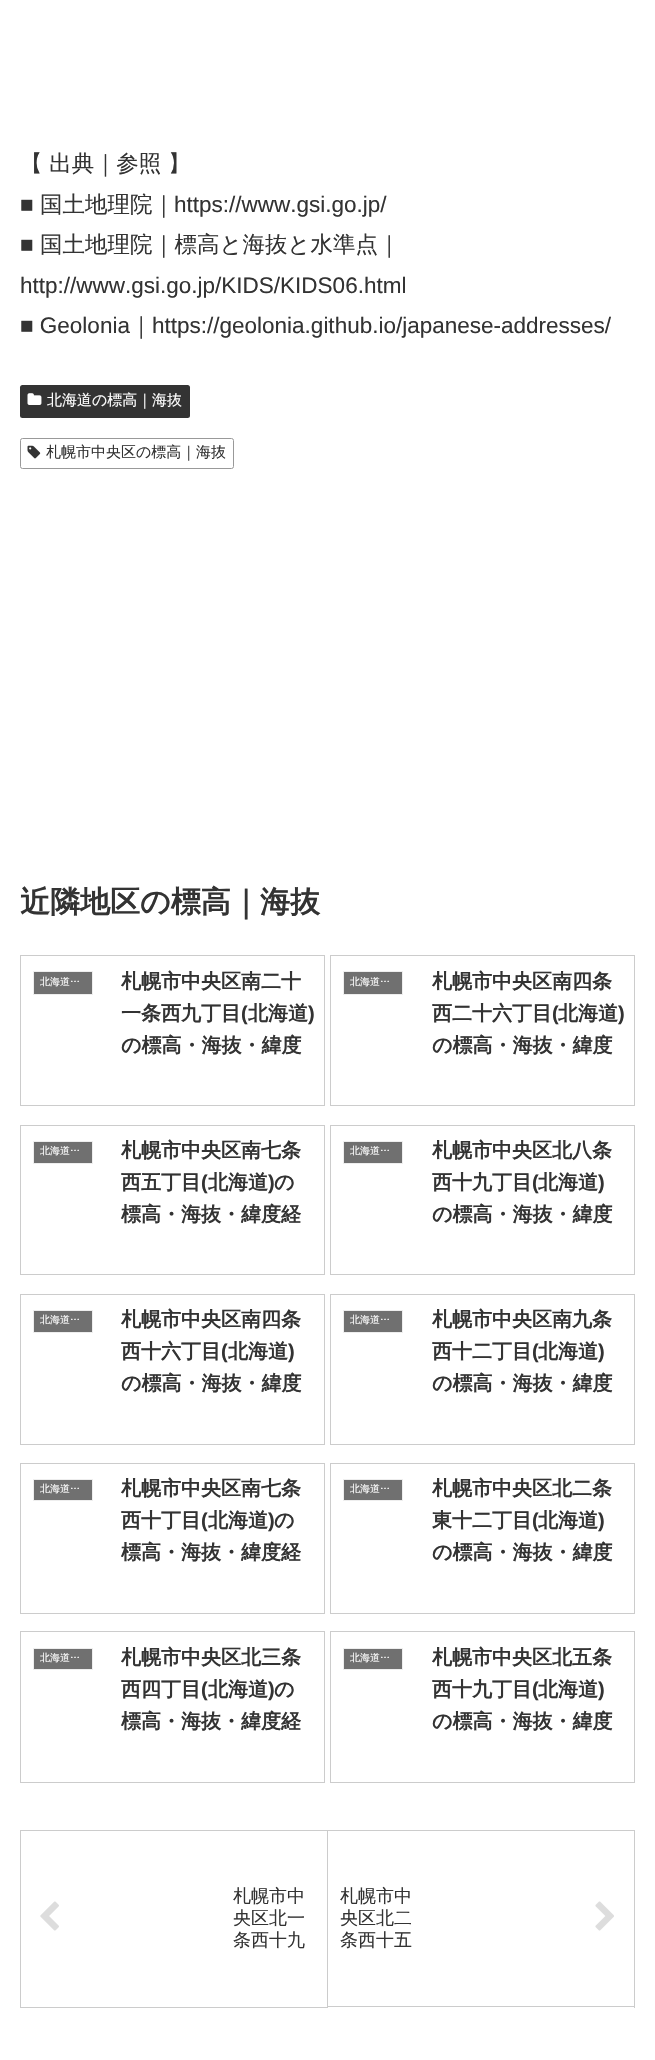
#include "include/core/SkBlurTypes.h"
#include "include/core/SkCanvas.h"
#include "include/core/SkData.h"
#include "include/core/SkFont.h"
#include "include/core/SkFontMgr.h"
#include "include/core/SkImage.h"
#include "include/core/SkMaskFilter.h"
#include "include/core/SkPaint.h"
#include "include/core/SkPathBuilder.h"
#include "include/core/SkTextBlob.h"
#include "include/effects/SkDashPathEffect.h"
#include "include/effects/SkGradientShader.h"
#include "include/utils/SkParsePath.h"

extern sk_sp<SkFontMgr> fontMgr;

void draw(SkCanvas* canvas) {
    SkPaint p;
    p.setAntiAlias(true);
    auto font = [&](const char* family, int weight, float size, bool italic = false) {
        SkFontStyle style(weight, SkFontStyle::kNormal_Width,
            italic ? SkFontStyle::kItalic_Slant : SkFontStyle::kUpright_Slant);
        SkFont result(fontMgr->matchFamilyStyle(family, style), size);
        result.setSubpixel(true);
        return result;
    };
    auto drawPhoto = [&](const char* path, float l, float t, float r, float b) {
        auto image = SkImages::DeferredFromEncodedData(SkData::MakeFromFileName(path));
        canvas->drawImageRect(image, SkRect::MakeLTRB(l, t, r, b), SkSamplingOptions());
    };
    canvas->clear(0xFFFFFFFF);
    auto font1 = font("WenQuanYi Zen Hei", 500, 22.5f);
    p.setColor(0xFF333333);
    canvas->drawString("【 出典｜参照 】", 20, 171, font1, p);
    auto font2 = font("Liberation Sans", 400, 22.5f);
    canvas->drawString("■", 20, 212, font2, p);
    canvas->drawString("国土地理院｜", 40, 212, font1, p);
    canvas->drawString("https://www.gsi.go.jp/", 174, 212, font2, p);
    canvas->drawString("■", 20, 252, font2, p);
    canvas->drawString("国土地理院｜標高と海抜と水準点｜", 40, 252, font1, p);
    canvas->drawString("http://www.gsi.go.jp/KIDS/KIDS06.html", 20, 293, font2, p);
    canvas->drawString("■ Geolonia", 20, 333, font2, p);
    canvas->drawString("｜", 130, 333, font1, p);
    canvas->drawString("https://geolonia.github.io/japanese-addresses/", 152, 333, font2, p);
    canvas->drawRoundRect(SkRect::MakeLTRB(20, 385, 190, 418), 2.5f, 2.5f, p);
    drawPhoto("media/1.png", 27, 393, 42, 405);
    auto font3 = font("WenQuanYi Zen Hei", 500, 15);
    p.setColor(0xFFFFFFFF);
    canvas->drawString("北海道の標高｜海抜", 47, 405, font3, p);
    p.setStyle(SkPaint::kStroke_Style);
    p.setStrokeWidth(1);
    p.setColor(0xFF999999);
    canvas->drawRoundRect(SkRect::MakeLTRB(20.5f, 438.5f, 233.5f, 468.5f), 2, 2, p);
    drawPhoto("media/2.png", 27, 445, 41, 459);
    p.setStyle(SkPaint::kFill_Style);
    p.setColor(0xFF333333);
    canvas->drawString("札幌市中央区の標高｜海抜", 46, 457, font3, p);
    auto font4 = font("WenQuanYi Zen Hei", 700, 30);
    canvas->drawString("近隣地区の標高｜海抜", 20, 912, font4, p);
    p.setStyle(SkPaint::kStroke_Style);
    p.setColor(0xFFCCCCCC);
    canvas->drawRect(SkRect::MakeLTRB(20.5f, 955.5f, 324.5f, 1105.5f), p);
    p.setStyle(SkPaint::kFill_Style);
    p.setColor(0xFF707070);
    canvas->drawRect(SkRect::MakeLTRB(33.5f, 971.5f, 92.5f, 994.5f), p);
    p.setStyle(SkPaint::kStroke_Style);
    p.setColor(0xFFEEEEEE);
    canvas->drawRect(SkRect::MakeLTRB(33.5f, 971.5f, 92.5f, 994.5f), p);
    auto font5 = font("WenQuanYi Zen Hei", 500, 10);
    p.setStyle(SkPaint::kFill_Style);
    p.setColor(0xFFFFFFFF);
    canvas->drawString("北海道…", 40, 985, font5, p);
    auto font6 = font("WenQuanYi Zen Hei", 700, 20);
    p.setColor(0xFF333333);
    canvas->drawString("札幌市中央区南二十", 121, 988, font6, p);
    canvas->drawString("一条西九丁目", 121, 1020, font6, p);
    auto font7 = font("Liberation Sans", 700, 20);
    canvas->drawString("(", 241, 1020, font7, p);
    canvas->drawString("北海道", 248, 1020, font6, p);
    canvas->drawString(")", 308, 1020, font7, p);
    canvas->drawString("の標高・海抜・緯度", 121, 1052, font6, p);
    p.setStyle(SkPaint::kStroke_Style);
    p.setColor(0xFFCCCCCC);
    canvas->drawRect(SkRect::MakeLTRB(330.5f, 955.5f, 634.5f, 1105.5f), p);
    p.setStyle(SkPaint::kFill_Style);
    p.setColor(0xFF707070);
    canvas->drawRect(SkRect::MakeLTRB(343.5f, 971.5f, 402.5f, 994.5f), p);
    p.setStyle(SkPaint::kStroke_Style);
    p.setColor(0xFFEEEEEE);
    canvas->drawRect(SkRect::MakeLTRB(343.5f, 971.5f, 402.5f, 994.5f), p);
    p.setStyle(SkPaint::kFill_Style);
    p.setColor(0xFFFFFFFF);
    canvas->drawString("北海道…", 350, 985, font5, p);
    p.setColor(0xFF333333);
    canvas->drawString("札幌市中央区南四条", 432, 988, font6, p);
    canvas->drawString("西二十六丁目", 432, 1020, font6, p);
    canvas->drawString("(", 552, 1020, font7, p);
    canvas->drawString("北海道", 558, 1020, font6, p);
    canvas->drawString(")", 618, 1020, font7, p);
    canvas->drawString("の標高・海抜・緯度", 432, 1052, font6, p);
    p.setStyle(SkPaint::kStroke_Style);
    p.setColor(0xFFCCCCCC);
    canvas->drawRect(SkRect::MakeLTRB(20.5f, 1125.5f, 324.5f, 1274.5f), p);
    p.setStyle(SkPaint::kFill_Style);
    p.setColor(0xFF707070);
    canvas->drawRect(SkRect::MakeLTRB(33.5f, 1141.5f, 92.5f, 1163.5f), p);
    p.setStyle(SkPaint::kStroke_Style);
    p.setColor(0xFFEEEEEE);
    canvas->drawRect(SkRect::MakeLTRB(33.5f, 1141.5f, 92.5f, 1163.5f), p);
    p.setStyle(SkPaint::kFill_Style);
    p.setColor(0xFFFFFFFF);
    canvas->drawString("北海道…", 40, 1154, font5, p);
    p.setColor(0xFF333333);
    canvas->drawString("札幌市中央区南七条", 121, 1157, font6, p);
    canvas->drawString("西五丁目", 121, 1189, font6, p);
    canvas->drawString("(", 201, 1189, font7, p);
    canvas->drawString("北海道", 208, 1189, font6, p);
    canvas->drawString(")", 268, 1189, font7, p);
    canvas->drawString("の", 274, 1189, font6, p);
    canvas->drawString("標高・海抜・緯度経", 121, 1221, font6, p);
    p.setStyle(SkPaint::kStroke_Style);
    p.setColor(0xFFCCCCCC);
    canvas->drawRect(SkRect::MakeLTRB(330.5f, 1125.5f, 634.5f, 1274.5f), p);
    p.setStyle(SkPaint::kFill_Style);
    p.setColor(0xFF707070);
    canvas->drawRect(SkRect::MakeLTRB(343.5f, 1141.5f, 402.5f, 1163.5f), p);
    p.setStyle(SkPaint::kStroke_Style);
    p.setColor(0xFFEEEEEE);
    canvas->drawRect(SkRect::MakeLTRB(343.5f, 1141.5f, 402.5f, 1163.5f), p);
    p.setStyle(SkPaint::kFill_Style);
    p.setColor(0xFFFFFFFF);
    canvas->drawString("北海道…", 350, 1154, font5, p);
    p.setColor(0xFF333333);
    canvas->drawString("札幌市中央区北八条", 432, 1157, font6, p);
    canvas->drawString("西十九丁目", 432, 1189, font6, p);
    canvas->drawString("(", 532, 1189, font7, p);
    canvas->drawString("北海道", 538, 1189, font6, p);
    canvas->drawString(")", 598, 1189, font7, p);
    canvas->drawString("の標高・海抜・緯度", 432, 1221, font6, p);
    p.setStyle(SkPaint::kStroke_Style);
    p.setColor(0xFFCCCCCC);
    canvas->drawRect(SkRect::MakeLTRB(20.5f, 1294.5f, 324.5f, 1444.5f), p);
    p.setStyle(SkPaint::kFill_Style);
    p.setColor(0xFF707070);
    canvas->drawRect(SkRect::MakeLTRB(33.5f, 1310.5f, 92.5f, 1332.5f), p);
    p.setStyle(SkPaint::kStroke_Style);
    p.setColor(0xFFEEEEEE);
    canvas->drawRect(SkRect::MakeLTRB(33.5f, 1310.5f, 92.5f, 1332.5f), p);
    p.setStyle(SkPaint::kFill_Style);
    p.setColor(0xFFFFFFFF);
    canvas->drawString("北海道…", 40, 1323, font5, p);
    p.setColor(0xFF333333);
    canvas->drawString("札幌市中央区南四条", 121, 1326, font6, p);
    canvas->drawString("西十六丁目", 121, 1358, font6, p);
    canvas->drawString("(", 221, 1358, font7, p);
    canvas->drawString("北海道", 228, 1358, font6, p);
    canvas->drawString(")", 288, 1358, font7, p);
    canvas->drawString("の標高・海抜・緯度", 121, 1390, font6, p);
    p.setStyle(SkPaint::kStroke_Style);
    p.setColor(0xFFCCCCCC);
    canvas->drawRect(SkRect::MakeLTRB(330.5f, 1294.5f, 634.5f, 1444.5f), p);
    p.setStyle(SkPaint::kFill_Style);
    p.setColor(0xFF707070);
    canvas->drawRect(SkRect::MakeLTRB(343.5f, 1310.5f, 402.5f, 1332.5f), p);
    p.setStyle(SkPaint::kStroke_Style);
    p.setColor(0xFFEEEEEE);
    canvas->drawRect(SkRect::MakeLTRB(343.5f, 1310.5f, 402.5f, 1332.5f), p);
    p.setStyle(SkPaint::kFill_Style);
    p.setColor(0xFFFFFFFF);
    canvas->drawString("北海道…", 350, 1323, font5, p);
    p.setColor(0xFF333333);
    canvas->drawString("札幌市中央区南九条", 432, 1326, font6, p);
    canvas->drawString("西十二丁目", 432, 1358, font6, p);
    canvas->drawString("(", 532, 1358, font7, p);
    canvas->drawString("北海道", 538, 1358, font6, p);
    canvas->drawString(")", 598, 1358, font7, p);
    canvas->drawString("の標高・海抜・緯度", 432, 1390, font6, p);
    p.setStyle(SkPaint::kStroke_Style);
    p.setColor(0xFFCCCCCC);
    canvas->drawRect(SkRect::MakeLTRB(20.5f, 1463.5f, 324.5f, 1613.5f), p);
    p.setStyle(SkPaint::kFill_Style);
    p.setColor(0xFF707070);
    canvas->drawRect(SkRect::MakeLTRB(33.5f, 1479.5f, 92.5f, 1500.5f), p);
    p.setStyle(SkPaint::kStroke_Style);
    p.setColor(0xFFEEEEEE);
    canvas->drawRect(SkRect::MakeLTRB(33.5f, 1479.5f, 92.5f, 1500.5f), p);
    p.setStyle(SkPaint::kFill_Style);
    p.setColor(0xFFFFFFFF);
    canvas->drawString("北海道…", 40, 1492, font5, p);
    p.setColor(0xFF333333);
    canvas->drawString("札幌市中央区南七条", 121, 1495, font6, p);
    canvas->drawString("西十丁目", 121, 1527, font6, p);
    canvas->drawString("(", 201, 1527, font7, p);
    canvas->drawString("北海道", 208, 1527, font6, p);
    canvas->drawString(")", 268, 1527, font7, p);
    canvas->drawString("の", 274, 1527, font6, p);
    canvas->drawString("標高・海抜・緯度経", 121, 1559, font6, p);
    p.setStyle(SkPaint::kStroke_Style);
    p.setColor(0xFFCCCCCC);
    canvas->drawRect(SkRect::MakeLTRB(330.5f, 1463.5f, 634.5f, 1613.5f), p);
    p.setStyle(SkPaint::kFill_Style);
    p.setColor(0xFF707070);
    canvas->drawRect(SkRect::MakeLTRB(343.5f, 1479.5f, 402.5f, 1500.5f), p);
    p.setStyle(SkPaint::kStroke_Style);
    p.setColor(0xFFEEEEEE);
    canvas->drawRect(SkRect::MakeLTRB(343.5f, 1479.5f, 402.5f, 1500.5f), p);
    p.setStyle(SkPaint::kFill_Style);
    p.setColor(0xFFFFFFFF);
    canvas->drawString("北海道…", 350, 1492, font5, p);
    p.setColor(0xFF333333);
    canvas->drawString("札幌市中央区北二条", 432, 1495, font6, p);
    canvas->drawString("東十二丁目", 432, 1527, font6, p);
    canvas->drawString("(", 532, 1527, font7, p);
    canvas->drawString("北海道", 538, 1527, font6, p);
    canvas->drawString(")", 598, 1527, font7, p);
    canvas->drawString("の標高・海抜・緯度", 432, 1559, font6, p);
    p.setStyle(SkPaint::kStroke_Style);
    p.setColor(0xFFCCCCCC);
    canvas->drawRect(SkRect::MakeLTRB(20.5f, 1631.5f, 324.5f, 1782.5f), p);
    p.setStyle(SkPaint::kFill_Style);
    p.setColor(0xFF707070);
    canvas->drawRect(SkRect::MakeLTRB(33.5f, 1648.5f, 92.5f, 1669.5f), p);
    p.setStyle(SkPaint::kStroke_Style);
    p.setColor(0xFFEEEEEE);
    canvas->drawRect(SkRect::MakeLTRB(33.5f, 1648.5f, 92.5f, 1669.5f), p);
    p.setStyle(SkPaint::kFill_Style);
    p.setColor(0xFFFFFFFF);
    canvas->drawString("北海道…", 40, 1661, font5, p);
    p.setColor(0xFF333333);
    canvas->drawString("札幌市中央区北三条", 121, 1664, font6, p);
    canvas->drawString("西四丁目", 121, 1696, font6, p);
    canvas->drawString("(", 201, 1696, font7, p);
    canvas->drawString("北海道", 208, 1696, font6, p);
    canvas->drawString(")", 268, 1696, font7, p);
    canvas->drawString("の", 274, 1696, font6, p);
    canvas->drawString("標高・海抜・緯度経", 121, 1728, font6, p);
    p.setStyle(SkPaint::kStroke_Style);
    p.setColor(0xFFCCCCCC);
    canvas->drawRect(SkRect::MakeLTRB(330.5f, 1631.5f, 634.5f, 1782.5f), p);
    p.setStyle(SkPaint::kFill_Style);
    p.setColor(0xFF707070);
    canvas->drawRect(SkRect::MakeLTRB(343.5f, 1648.5f, 402.5f, 1669.5f), p);
    p.setStyle(SkPaint::kStroke_Style);
    p.setColor(0xFFEEEEEE);
    canvas->drawRect(SkRect::MakeLTRB(343.5f, 1648.5f, 402.5f, 1669.5f), p);
    p.setStyle(SkPaint::kFill_Style);
    p.setColor(0xFFFFFFFF);
    canvas->drawString("北海道…", 350, 1661, font5, p);
    p.setColor(0xFF333333);
    canvas->drawString("札幌市中央区北五条", 432, 1664, font6, p);
    canvas->drawString("西十九丁目", 432, 1696, font6, p);
    canvas->drawString("(", 532, 1696, font7, p);
    canvas->drawString("北海道", 538, 1696, font6, p);
    canvas->drawString(")", 598, 1696, font7, p);
    canvas->drawString("の標高・海抜・緯度", 432, 1728, font6, p);
    p.setStyle(SkPaint::kStroke_Style);
    p.setColor(0xFFCCCCCC);
    canvas->drawRect(SkRect::MakeLTRB(20.5f, 1830.5f, 327.5f, 2007.5f), p);
    drawPhoto("media/3.png", 40, 1901, 59, 1931);
    auto font8 = font("WenQuanYi Zen Hei", 500, 18);
    p.setStyle(SkPaint::kFill_Style);
    p.setColor(0xFF333333);
    {
        const struct { const char* s; float x, y; } items[] = {
            {"札幌市中", 233, 1902},
            {"央区北一", 233, 1924},
            {"条西十九", 233, 1946},
        };
        for (auto [s, x, y] : items) {
            canvas->drawString(s, x, y, font8, p);
        }
    }
    {
        const struct { float l, t, r, b; SkColor color; } items[] = {
            {328, 1830, 635, 1831, 0xFFCCCCCC},
            {634, 1830, 635, 2008, 0xFFCCCCCC},
            {328, 2006, 635, 2007, 0xFFCCCCCC},
        };
        for (auto [l, t, r, b, color] : items) {
            p.setColor(color);
            canvas->drawRect(SkRect::MakeLTRB(l, t, r, b), p);
        }
    }
    p.setColor(0xFF333333);
    {
        const struct { const char* s; float x, y; } items[] = {
            {"札幌市中", 340, 1902},
            {"央区北二", 340, 1924},
            {"条西十五", 340, 1946},
        };
        for (auto [s, x, y] : items) {
            canvas->drawString(s, x, y, font8, p);
        }
    }
    drawPhoto("media/4.png", 595, 1901, 614, 1931);
}
